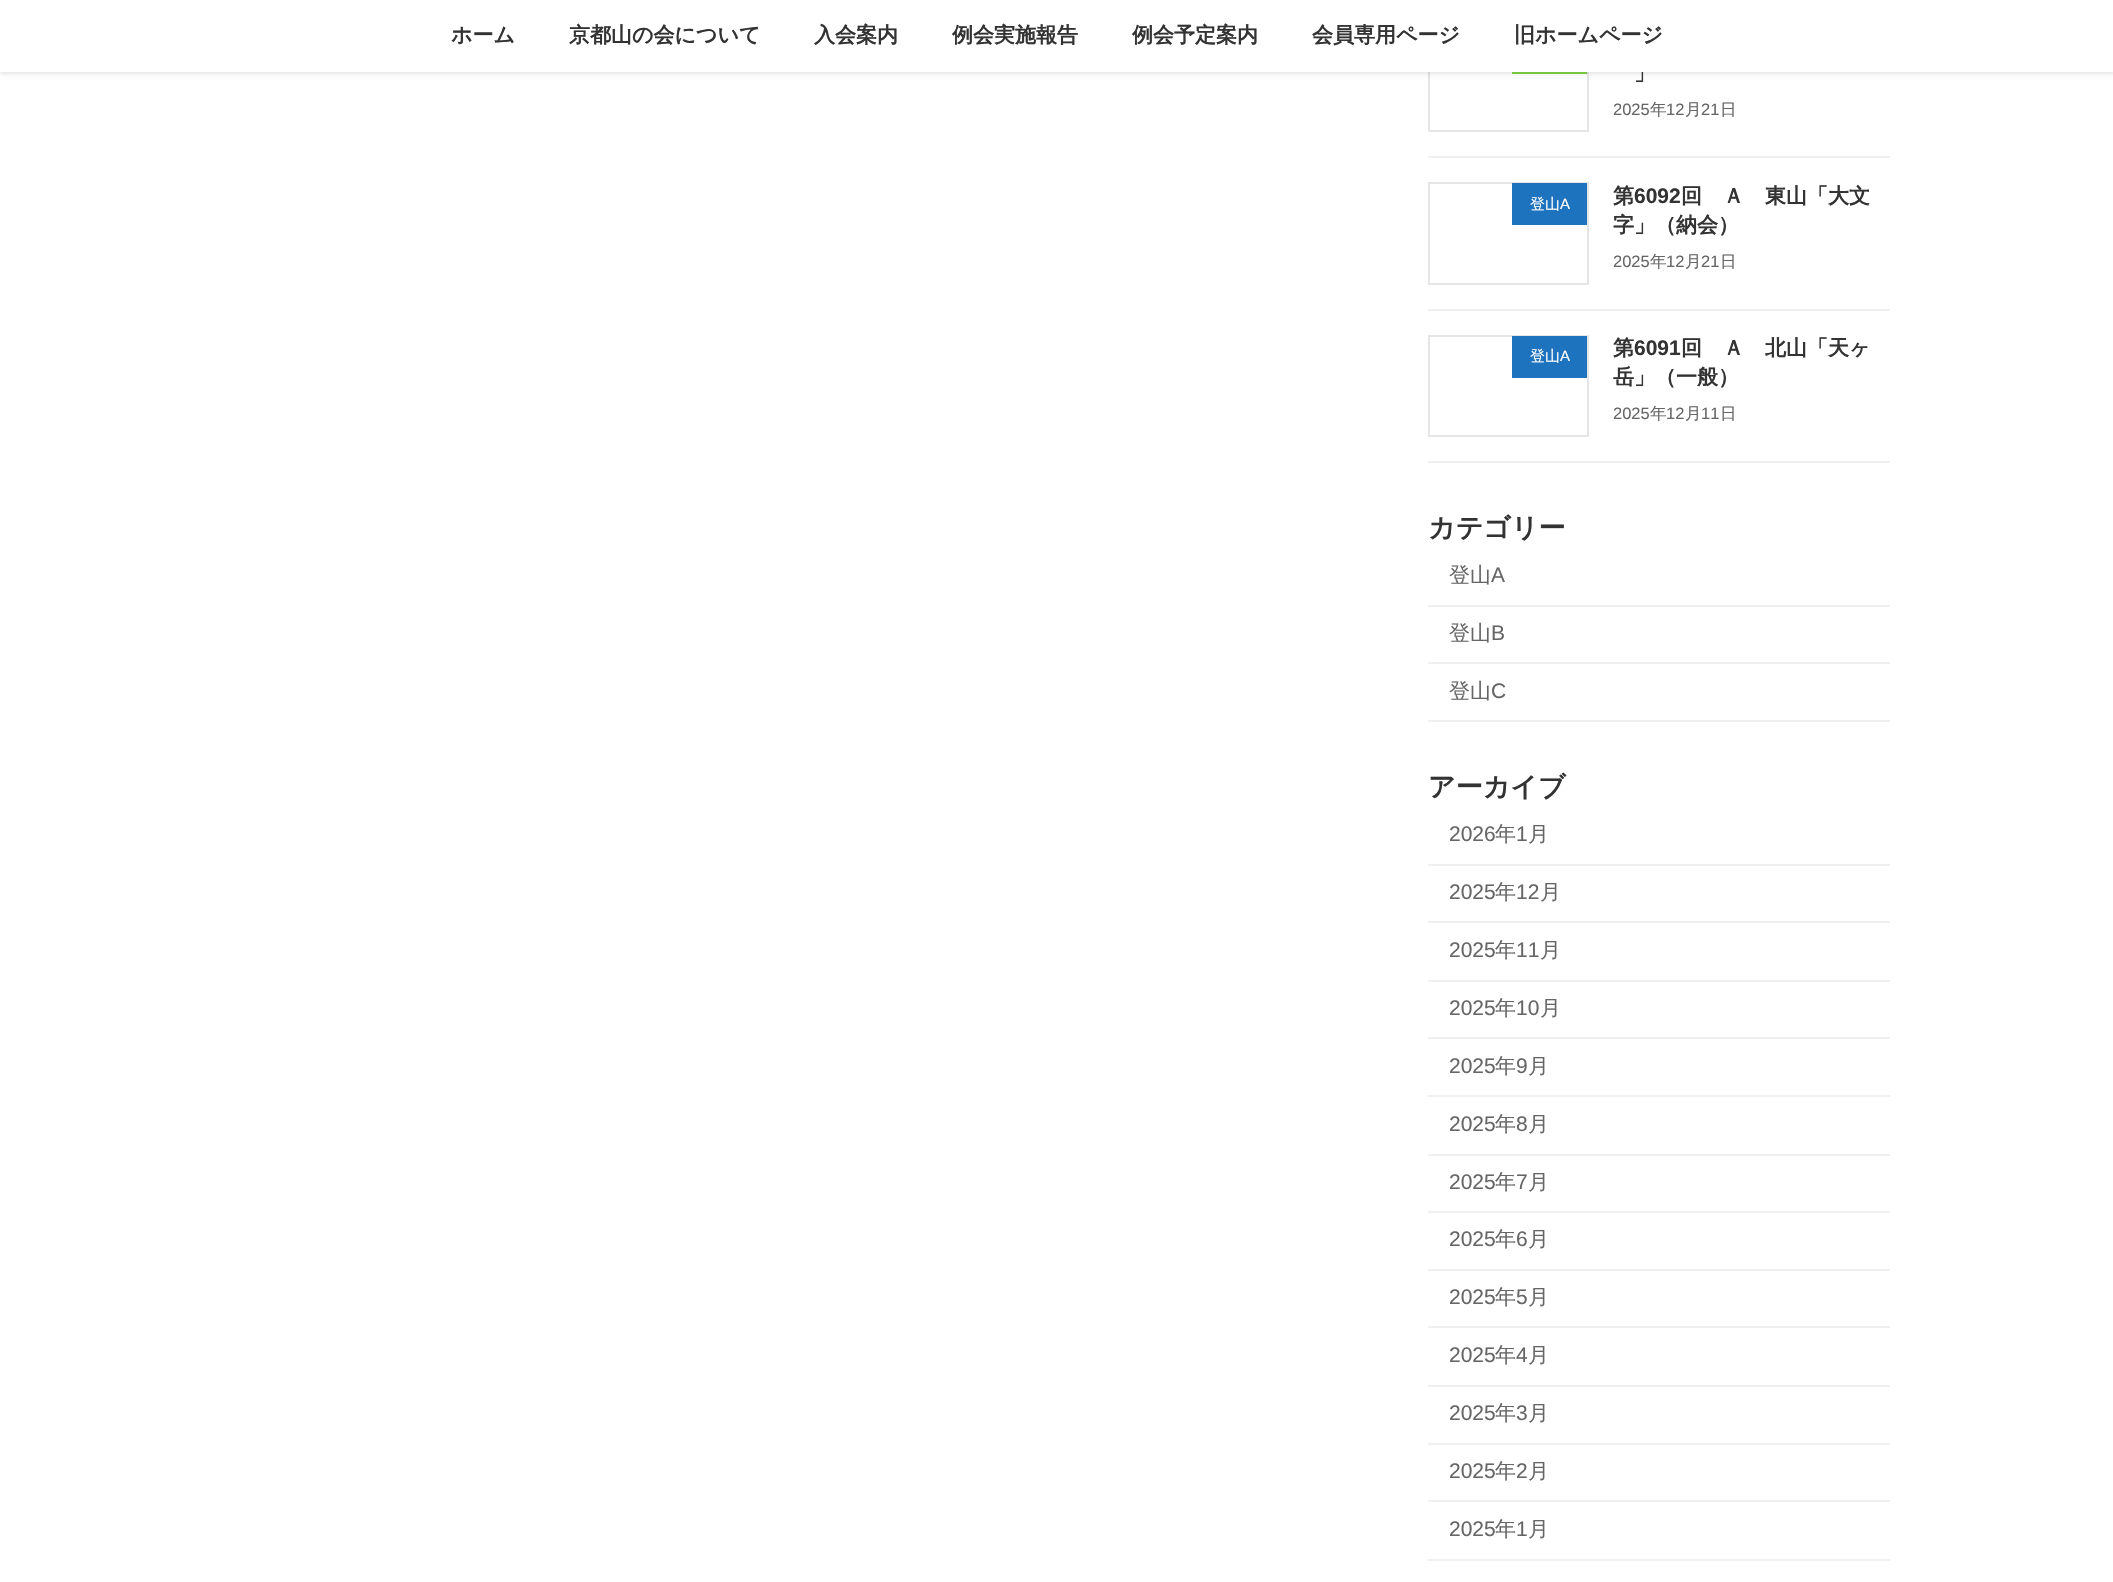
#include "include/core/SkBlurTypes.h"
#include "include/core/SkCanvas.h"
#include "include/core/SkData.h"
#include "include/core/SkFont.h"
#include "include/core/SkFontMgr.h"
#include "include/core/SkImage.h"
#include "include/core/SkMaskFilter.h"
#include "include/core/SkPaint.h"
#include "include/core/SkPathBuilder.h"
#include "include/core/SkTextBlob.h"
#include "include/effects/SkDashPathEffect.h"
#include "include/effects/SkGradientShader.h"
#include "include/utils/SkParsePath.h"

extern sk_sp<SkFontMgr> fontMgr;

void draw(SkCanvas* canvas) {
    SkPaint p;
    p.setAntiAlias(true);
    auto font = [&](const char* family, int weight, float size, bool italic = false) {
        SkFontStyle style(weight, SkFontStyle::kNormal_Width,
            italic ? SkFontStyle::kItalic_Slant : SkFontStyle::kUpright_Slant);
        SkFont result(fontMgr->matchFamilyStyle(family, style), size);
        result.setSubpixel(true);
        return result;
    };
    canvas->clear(0xFFFFFFFF);
    p.setStyle(SkPaint::kStroke_Style);
    p.setStrokeWidth(2);
    p.setColor(0xFFE5E5E5);
    canvas->drawRect(SkRect::MakeLTRB(1429, 31, 1588, 131), p);
    p.setStyle(SkPaint::kFill_Style);
    p.setColor(0xFF81D742);
    canvas->drawRect(SkRect::MakeLTRB(1512, 72, 1587, 74), p);
    p.setColor(0x1A000000);
    p.setMaskFilter(SkMaskFilter::MakeBlur(kNormal_SkBlurStyle, 2));
    canvas->drawRect(SkRect::MakeLTRB(0, 2, 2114, 74), p);
    p.setMaskFilter(nullptr);
    auto font1 = font("WenQuanYi Zen Hei", 700, 21);
    p.setColor(0xFF333333);
    canvas->drawString("」", 1634, 80, font1, p);
    p.setColor(0xFFFFFFFF);
    canvas->drawRect(SkRect::MakeLTRB(0, 0, 2113, 72), p);
    p.setColor(0xFF333333);
    {
        const struct { const char* s; float x, y; } items[] = {
            {"ホーム", 451, 42},
            {"京都山の会について", 569, 42},
            {"入会案内", 814, 42},
            {"例会実施報告", 952, 42},
            {"例会予定案内", 1132, 42},
            {"会員専用ページ", 1312, 42},
            {"旧ホームページ", 1514, 42},
        };
        for (auto [s, x, y] : items) {
            canvas->drawString(s, x, y, font1, p);
        }
    }
    p.setColor(0xFFF0F0F0);
    canvas->drawRect(SkRect::MakeLTRB(1428, 156, 1890, 158), p);
    auto font2 = font("Liberation Sans", 400, 16.5f);
    p.setColor(0xFF666666);
    canvas->drawString("2025", 1613, 115, font2, p);
    auto font3 = font("WenQuanYi Zen Hei", 500, 16.5f);
    canvas->drawString("年", 1650, 115, font3, p);
    canvas->drawString("12", 1666, 115, font2, p);
    canvas->drawString("月", 1685, 115, font3, p);
    canvas->drawString("21", 1701, 115, font2, p);
    canvas->drawString("日", 1720, 115, font3, p);
    p.setColor(0xFFF0F0F0);
    canvas->drawRect(SkRect::MakeLTRB(1428, 309, 1890, 311), p);
    p.setStyle(SkPaint::kStroke_Style);
    p.setColor(0xFFE5E5E5);
    canvas->drawRect(SkRect::MakeLTRB(1429, 183, 1588, 284), p);
    p.setStyle(SkPaint::kFill_Style);
    p.setColor(0xFF1E73BE);
    canvas->drawRect(SkRect::MakeLTRB(1512, 183, 1587, 225), p);
    auto font4 = font("WenQuanYi Zen Hei", 500, 15);
    p.setColor(0xFFFFFFFF);
    canvas->drawString("登山", 1530, 209, font4, p);
    auto font5 = font("Liberation Sans", 400, 15);
    canvas->drawString("A", 1560, 209, font5, p);
    p.setColor(0xFF333333);
    canvas->drawString("第", 1613, 203, font1, p);
    auto font6 = font("Liberation Sans", 700, 21);
    canvas->drawString("6092", 1634, 203, font6, p);
    canvas->drawString("回　Ａ　東山「大文", 1681, 203, font1, p);
    canvas->drawString("字」（納会）", 1613, 232, font1, p);
    p.setColor(0xFF666666);
    canvas->drawString("2025", 1613, 267, font2, p);
    canvas->drawString("年", 1650, 267, font3, p);
    canvas->drawString("12", 1666, 267, font2, p);
    canvas->drawString("月", 1685, 267, font3, p);
    canvas->drawString("21", 1701, 267, font2, p);
    canvas->drawString("日", 1720, 267, font3, p);
    p.setColor(0xFFF0F0F0);
    canvas->drawRect(SkRect::MakeLTRB(1428, 461, 1890, 463), p);
    p.setStyle(SkPaint::kStroke_Style);
    p.setColor(0xFFE5E5E5);
    canvas->drawRect(SkRect::MakeLTRB(1429, 336, 1588, 436), p);
    p.setStyle(SkPaint::kFill_Style);
    p.setColor(0xFF1E73BE);
    canvas->drawRect(SkRect::MakeLTRB(1512, 336, 1587, 378), p);
    p.setColor(0xFFFFFFFF);
    canvas->drawString("登山", 1530, 361, font4, p);
    canvas->drawString("A", 1560, 361, font5, p);
    p.setColor(0xFF333333);
    canvas->drawString("第", 1613, 355, font1, p);
    canvas->drawString("6091", 1634, 355, font6, p);
    canvas->drawString("回　Ａ　北山「天ヶ", 1681, 355, font1, p);
    canvas->drawString("岳」（一般）", 1613, 384, font1, p);
    p.setColor(0xFF666666);
    canvas->drawString("2025", 1613, 419, font2, p);
    canvas->drawString("年", 1650, 419, font3, p);
    canvas->drawString("12", 1666, 419, font2, p);
    canvas->drawString("月", 1685, 419, font3, p);
    canvas->drawString("11", 1701, 419, font2, p);
    canvas->drawString("日", 1720, 419, font3, p);
    auto font7 = font("WenQuanYi Zen Hei", 700, 27);
    p.setColor(0xFF333333);
    canvas->drawString("カテゴリー", 1428, 537, font7, p);
    p.setColor(0xFFF0F0F0);
    canvas->drawRect(SkRect::MakeLTRB(1428, 605, 1890, 607), p);
    auto font8 = font("WenQuanYi Zen Hei", 500, 21);
    p.setColor(0xFF666666);
    canvas->drawString("登山", 1449, 582, font8, p);
    auto font9 = font("Liberation Sans", 400, 21);
    canvas->drawString("A", 1491, 582, font9, p);
    p.setColor(0xFFF0F0F0);
    canvas->drawRect(SkRect::MakeLTRB(1428, 662, 1890, 664), p);
    p.setColor(0xFF666666);
    canvas->drawString("登山", 1449, 640, font8, p);
    canvas->drawString("B", 1491, 640, font9, p);
    p.setColor(0xFFF0F0F0);
    canvas->drawRect(SkRect::MakeLTRB(1428, 720, 1890, 722), p);
    p.setColor(0xFF666666);
    canvas->drawString("登山", 1449, 698, font8, p);
    canvas->drawString("C", 1491, 698, font9, p);
    p.setColor(0xFF333333);
    canvas->drawString("アーカイブ", 1428, 796, font7, p);
    p.setColor(0xFFF0F0F0);
    canvas->drawRect(SkRect::MakeLTRB(1428, 864, 1890, 866), p);
    p.setColor(0xFF666666);
    canvas->drawString("2026", 1449, 841, font9, p);
    canvas->drawString("年", 1495, 841, font8, p);
    canvas->drawString("1", 1516, 841, font9, p);
    canvas->drawString("月", 1528, 841, font8, p);
    p.setColor(0xFFF0F0F0);
    canvas->drawRect(SkRect::MakeLTRB(1428, 921, 1890, 923), p);
    p.setColor(0xFF666666);
    canvas->drawString("2025", 1449, 899, font9, p);
    canvas->drawString("年", 1495, 899, font8, p);
    canvas->drawString("12", 1516, 899, font9, p);
    canvas->drawString("月", 1540, 899, font8, p);
    p.setColor(0xFFF0F0F0);
    canvas->drawRect(SkRect::MakeLTRB(1428, 980, 1890, 982), p);
    p.setColor(0xFF666666);
    canvas->drawString("2025", 1449, 957, font9, p);
    canvas->drawString("年", 1495, 957, font8, p);
    canvas->drawString("11", 1516, 957, font9, p);
    canvas->drawString("月", 1540, 957, font8, p);
    p.setColor(0xFFF0F0F0);
    canvas->drawRect(SkRect::MakeLTRB(1428, 1037, 1890, 1039), p);
    p.setColor(0xFF666666);
    canvas->drawString("2025", 1449, 1015, font9, p);
    canvas->drawString("年", 1495, 1015, font8, p);
    canvas->drawString("10", 1516, 1015, font9, p);
    canvas->drawString("月", 1540, 1015, font8, p);
    p.setColor(0xFFF0F0F0);
    canvas->drawRect(SkRect::MakeLTRB(1428, 1095, 1890, 1097), p);
    p.setColor(0xFF666666);
    canvas->drawString("2025", 1449, 1073, font9, p);
    canvas->drawString("年", 1495, 1073, font8, p);
    canvas->drawString("9", 1516, 1073, font9, p);
    canvas->drawString("月", 1528, 1073, font8, p);
    p.setColor(0xFFF0F0F0);
    canvas->drawRect(SkRect::MakeLTRB(1428, 1154, 1890, 1156), p);
    p.setColor(0xFF666666);
    canvas->drawString("2025", 1449, 1131, font9, p);
    canvas->drawString("年", 1495, 1131, font8, p);
    canvas->drawString("8", 1516, 1131, font9, p);
    canvas->drawString("月", 1528, 1131, font8, p);
    p.setColor(0xFFF0F0F0);
    canvas->drawRect(SkRect::MakeLTRB(1428, 1211, 1890, 1213), p);
    p.setColor(0xFF666666);
    canvas->drawString("2025", 1449, 1189, font9, p);
    canvas->drawString("年", 1495, 1189, font8, p);
    canvas->drawString("7", 1516, 1189, font9, p);
    canvas->drawString("月", 1528, 1189, font8, p);
    p.setColor(0xFFF0F0F0);
    canvas->drawRect(SkRect::MakeLTRB(1428, 1269, 1890, 1271), p);
    p.setColor(0xFF666666);
    canvas->drawString("2025", 1449, 1246, font9, p);
    canvas->drawString("年", 1495, 1246, font8, p);
    canvas->drawString("6", 1516, 1246, font9, p);
    canvas->drawString("月", 1528, 1246, font8, p);
    p.setColor(0xFFF0F0F0);
    canvas->drawRect(SkRect::MakeLTRB(1428, 1326, 1890, 1328), p);
    p.setColor(0xFF666666);
    canvas->drawString("2025", 1449, 1304, font9, p);
    canvas->drawString("年", 1495, 1304, font8, p);
    canvas->drawString("5", 1516, 1304, font9, p);
    canvas->drawString("月", 1528, 1304, font8, p);
    p.setColor(0xFFF0F0F0);
    canvas->drawRect(SkRect::MakeLTRB(1428, 1385, 1890, 1387), p);
    p.setColor(0xFF666666);
    canvas->drawString("2025", 1449, 1362, font9, p);
    canvas->drawString("年", 1495, 1362, font8, p);
    canvas->drawString("4", 1516, 1362, font9, p);
    canvas->drawString("月", 1528, 1362, font8, p);
    p.setColor(0xFFF0F0F0);
    canvas->drawRect(SkRect::MakeLTRB(1428, 1443, 1890, 1445), p);
    p.setColor(0xFF666666);
    canvas->drawString("2025", 1449, 1420, font9, p);
    canvas->drawString("年", 1495, 1420, font8, p);
    canvas->drawString("3", 1516, 1420, font9, p);
    canvas->drawString("月", 1528, 1420, font8, p);
    p.setColor(0xFFF0F0F0);
    canvas->drawRect(SkRect::MakeLTRB(1428, 1500, 1890, 1502), p);
    p.setColor(0xFF666666);
    canvas->drawString("2025", 1449, 1478, font9, p);
    canvas->drawString("年", 1495, 1478, font8, p);
    canvas->drawString("2", 1516, 1478, font9, p);
    canvas->drawString("月", 1528, 1478, font8, p);
    p.setColor(0xFFF0F0F0);
    canvas->drawRect(SkRect::MakeLTRB(1428, 1559, 1890, 1561), p);
    p.setColor(0xFF666666);
    canvas->drawString("2025", 1449, 1536, font9, p);
    canvas->drawString("年", 1495, 1536, font8, p);
    canvas->drawString("1", 1516, 1536, font9, p);
    canvas->drawString("月", 1528, 1536, font8, p);
}
